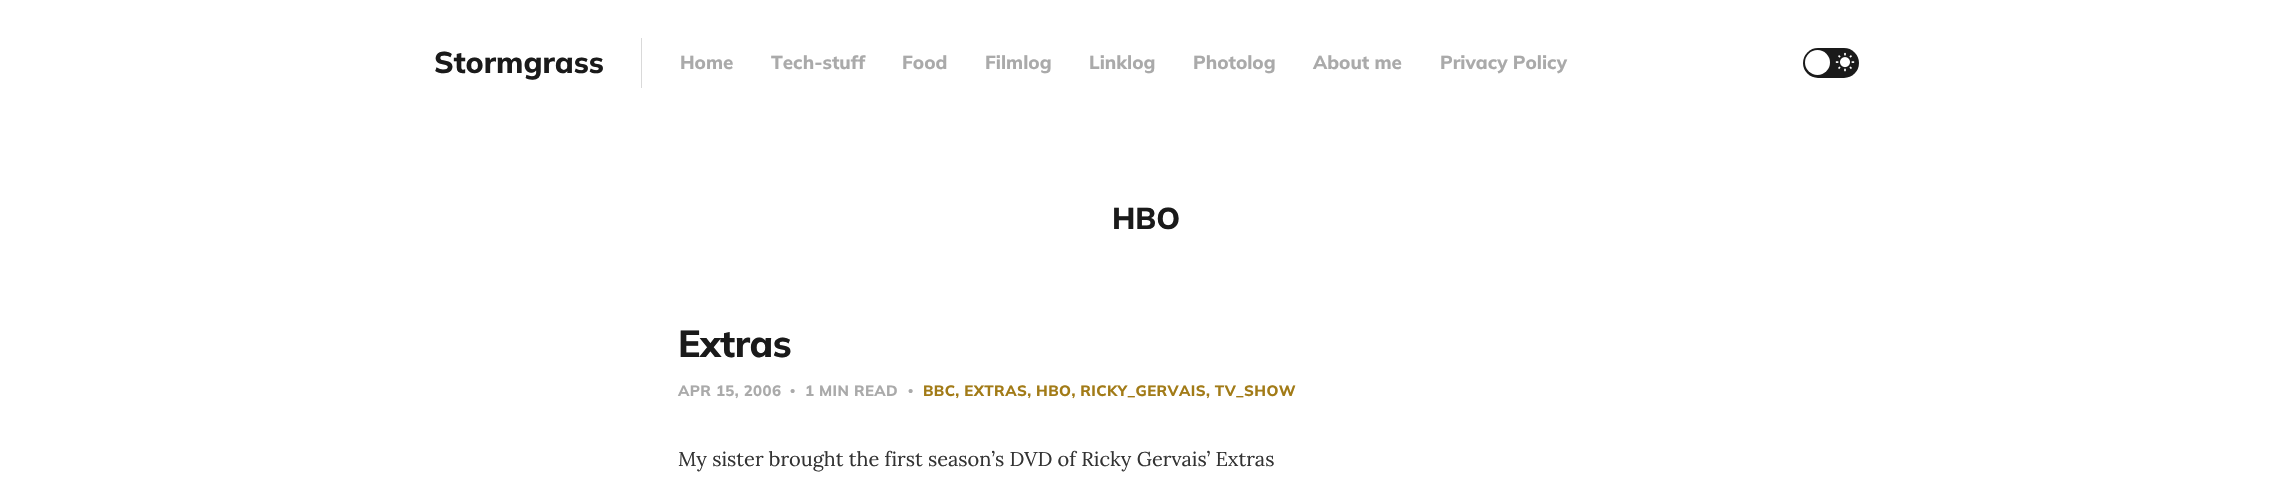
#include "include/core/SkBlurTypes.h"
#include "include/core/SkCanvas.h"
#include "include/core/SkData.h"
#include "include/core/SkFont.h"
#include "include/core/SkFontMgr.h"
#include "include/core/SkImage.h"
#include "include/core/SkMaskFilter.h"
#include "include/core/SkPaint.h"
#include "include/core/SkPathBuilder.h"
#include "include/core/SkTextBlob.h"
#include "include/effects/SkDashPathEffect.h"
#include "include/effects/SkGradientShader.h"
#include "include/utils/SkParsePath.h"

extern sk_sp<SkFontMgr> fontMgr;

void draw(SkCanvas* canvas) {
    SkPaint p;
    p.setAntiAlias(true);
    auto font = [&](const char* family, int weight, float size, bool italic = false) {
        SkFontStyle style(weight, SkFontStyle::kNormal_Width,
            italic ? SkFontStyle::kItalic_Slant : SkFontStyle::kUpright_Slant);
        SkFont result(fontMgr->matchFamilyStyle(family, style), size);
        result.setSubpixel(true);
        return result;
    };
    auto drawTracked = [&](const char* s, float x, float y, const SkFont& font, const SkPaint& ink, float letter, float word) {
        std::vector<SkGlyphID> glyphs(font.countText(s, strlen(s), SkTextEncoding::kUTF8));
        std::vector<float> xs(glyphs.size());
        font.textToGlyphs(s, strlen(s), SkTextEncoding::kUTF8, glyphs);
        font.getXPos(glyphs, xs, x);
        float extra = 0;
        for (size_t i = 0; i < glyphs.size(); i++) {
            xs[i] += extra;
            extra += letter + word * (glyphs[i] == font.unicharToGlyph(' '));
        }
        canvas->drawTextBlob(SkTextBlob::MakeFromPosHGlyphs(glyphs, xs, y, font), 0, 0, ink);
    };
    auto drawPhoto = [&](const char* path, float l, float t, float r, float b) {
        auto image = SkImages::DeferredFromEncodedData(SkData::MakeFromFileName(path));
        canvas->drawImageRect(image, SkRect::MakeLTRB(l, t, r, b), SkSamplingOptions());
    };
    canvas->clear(0xFFFFFFFF);
    auto font1 = font("Mulish", 800, 30);
    p.setColor(0xFF1A1A1A);
    canvas->drawString("Stormgrass", 434, 73, font1, p);
    p.setColor(0xFFD9D9D9);
    canvas->drawRect(SkRect::MakeLTRB(641, 38, 642, 88), p);
    auto font2 = font("Mulish", 800, 18.75f);
    p.setColor(0xFFAAAAAA);
    {
        const struct { const char* s; float x, y; } items[] = {
            {"Home", 680, 69},
            {"Tech-stuff", 771, 69},
            {"Food", 902, 69},
            {"Filmlog", 985, 69},
            {"Linklog", 1089, 69},
            {"Photolog", 1193, 69},
            {"About me", 1313, 69},
            {"Privacy Policy", 1440, 69},
        };
        for (auto [s, x, y] : items) {
            canvas->drawString(s, x, y, font2, p);
        }
    }
    p.setColor(0xFF1A1A1A);
    canvas->drawRoundRect(SkRect::MakeLTRB(1803, 48, 1859, 78), 15, 15, p);
    p.setColor(0xFFFFFFFF);
    canvas->drawCircle(1817.5f, 62.5f, 12.5f, p);
    drawPhoto("media/1.png", 1835, 52, 1855, 72);
    p.setColor(0xFF1A1A1A);
    canvas->drawString("HBO", 1112, 229, font1, p);
    auto font3 = font("Mulish", 800, 37.5f);
    drawTracked("Extras", 678, 357, font3, p, -0.5f, 0);
    auto font4 = font("Mulish", 800, 15);
    p.setColor(0xFFAAAAAA);
    drawTracked("APR 15, 2006", 678, 396, font4, p, 0.4f, 0);
    auto font5 = font("Liberation Serif", 700, 15);
    drawTracked("•", 790, 396, font5, p, 0.4f, 0);
    drawTracked("1 MIN READ", 805, 396, font4, p, 0.4f, 0);
    drawTracked("•", 908, 396, font5, p, 0.4f, 0);
    p.setColor(0xFFA27B17);
    drawTracked("BBC, EXTRAS, HBO, RICKY_GERVAIS, TV_SHOW", 923, 396, font4, p, 0.4f, 0);
    auto font6 = font("Lora", 400, 20);
    p.setColor(0xFF333333);
    canvas->drawString("My sister brought the first season’s DVD of Ricky Gervais’ Extras", 678, 466, font6, p);
}
